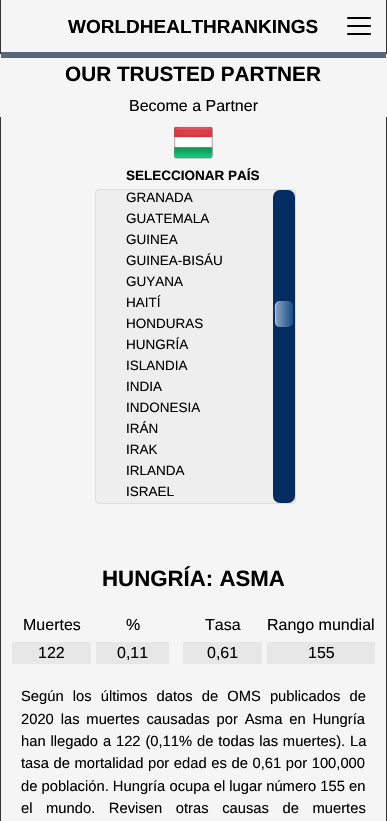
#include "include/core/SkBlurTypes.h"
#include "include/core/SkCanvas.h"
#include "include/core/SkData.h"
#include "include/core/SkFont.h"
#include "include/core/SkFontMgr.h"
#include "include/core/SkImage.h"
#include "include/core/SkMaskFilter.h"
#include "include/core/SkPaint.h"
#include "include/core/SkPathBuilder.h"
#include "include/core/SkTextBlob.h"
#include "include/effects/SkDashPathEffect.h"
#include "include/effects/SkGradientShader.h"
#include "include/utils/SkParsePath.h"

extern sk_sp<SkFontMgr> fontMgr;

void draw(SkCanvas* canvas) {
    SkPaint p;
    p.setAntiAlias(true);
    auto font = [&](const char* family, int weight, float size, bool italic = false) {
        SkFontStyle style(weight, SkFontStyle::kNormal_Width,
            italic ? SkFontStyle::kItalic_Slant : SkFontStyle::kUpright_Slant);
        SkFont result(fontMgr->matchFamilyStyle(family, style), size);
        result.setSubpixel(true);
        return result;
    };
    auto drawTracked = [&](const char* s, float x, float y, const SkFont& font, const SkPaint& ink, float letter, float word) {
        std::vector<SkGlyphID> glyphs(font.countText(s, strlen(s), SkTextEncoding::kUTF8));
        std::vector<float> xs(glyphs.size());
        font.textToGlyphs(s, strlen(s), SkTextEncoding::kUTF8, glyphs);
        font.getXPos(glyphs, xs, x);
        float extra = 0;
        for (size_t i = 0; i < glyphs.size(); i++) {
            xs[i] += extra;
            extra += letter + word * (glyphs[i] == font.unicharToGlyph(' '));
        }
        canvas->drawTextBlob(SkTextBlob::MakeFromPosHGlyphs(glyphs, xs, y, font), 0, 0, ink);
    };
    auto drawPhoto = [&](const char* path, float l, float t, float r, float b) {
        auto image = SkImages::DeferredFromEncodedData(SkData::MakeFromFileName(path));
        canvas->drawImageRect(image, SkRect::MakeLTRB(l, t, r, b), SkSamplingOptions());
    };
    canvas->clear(0xFFF5F5F5);
    {
        const struct { float l, t, r, b; SkColor color; } items[] = {
            {386, 0, 387, 54, 0xFF333333},
            {0, 0, 1, 54, 0xFF333333},
            {1, 52, 386, 58, 0xFF56677C},
        };
        for (auto [l, t, r, b, color] : items) {
            p.setColor(color);
            canvas->drawRect(SkRect::MakeLTRB(l, t, r, b), p);
        }
    }
    drawPhoto("media/1.png", 347, 17, 371, 35);
    auto font1 = font("Liberation Sans", 700, 19);
    p.setColor(0xFF000000);
    canvas->drawString("WORLDHEALTHRANKINGS", 68, 33, font1, p);
    auto font2 = font("Liberation Sans", 700, 20.75f);
    canvas->drawString("OUR TRUSTED PARTNER", 65, 81, font2, p);
    auto font3 = font("Liberation Sans", 400, 16);
    canvas->drawString("Become a Partner", 129, 111, font3, p);
    p.setColor(0xFF333333);
    canvas->drawRect(SkRect::MakeLTRB(386, 117, 387, 821), p);
    canvas->drawRect(SkRect::MakeLTRB(0, 117, 1, 821), p);
    drawPhoto("media/2.png", 174, 126, 213, 159);
    auto font4 = font("Liberation Sans", 700, 13.5f);
    p.setColor(0xFF000000);
    canvas->drawString("SELECCIONAR PAÍS", 126, 180, font4, p);
    p.setColor(0xFFEEEEEE);
    canvas->drawRoundRect(SkRect::MakeLTRB(95.5f, 189.5f, 295.5f, 503.5f), 3.5f, 3.5f, p);
    p.setStyle(SkPaint::kStroke_Style);
    p.setStrokeWidth(1);
    p.setColor(0xFFDDDDDD);
    canvas->drawRoundRect(SkRect::MakeLTRB(95.5f, 189.5f, 295.5f, 503.5f), 3.5f, 3.5f, p);
    auto font5 = font("Liberation Sans", 400, 13.5f);
    p.setStyle(SkPaint::kFill_Style);
    p.setColor(0xFF000000);
    {
        const struct { const char* s; float x, y; } items[] = {
            {"GRANADA", 126, 202},
            {"GUATEMALA", 126, 223},
            {"GUINEA", 126, 244},
            {"GUINEA-BISÁU", 126, 265},
            {"GUYANA", 126, 286},
            {"HAITÍ", 126, 307},
            {"HONDURAS", 126, 328},
            {"HUNGRÍA", 126, 349},
            {"ISLANDIA", 126, 370},
            {"INDIA", 126, 391},
            {"INDONESIA", 126, 412},
            {"IRÁN", 126, 433},
            {"IRAK", 126, 454},
            {"IRLANDA", 126, 475},
            {"ISRAEL", 126, 496},
        };
        for (auto [s, x, y] : items) {
            canvas->drawString(s, x, y, font5, p);
        }
    }
    p.setColor(0xFF032D61);
    canvas->drawRoundRect(SkRect::MakeLTRB(273, 190, 295, 503), 7, 7, p);
    p.setColor(0xFF194B88);
    canvas->drawRoundRect(SkRect::MakeLTRB(275, 301, 293, 327), 5, 5, p);
    {
        const SkColor colors[] = {0x80FFFFFF, 0x00FFFFFF};
        const float stops[] = {0, 1};
        const SkPoint ends[] = {{275, 314}, {293, 314}};
        p.setShader(SkGradientShader::MakeLinear(ends, colors, stops, 2, SkTileMode::kClamp));
        p.setAlpha(255);
    }
    canvas->drawRoundRect(SkRect::MakeLTRB(275, 301, 293, 327), 5, 5, p);
    p.setShader(nullptr);
    p.setColor(0x66FFFFFF);
    canvas->drawPath(SkPathBuilder(SkPathFillType::kEvenOdd).moveTo(281, 301).cubicTo(273, 301, 275, 308.5f, 275, 314).lineTo(275, 319.5f).cubicTo(275, 322.5f, 275, 326, 279, 327).lineTo(282.5f, 327).cubicTo(277, 327, 276, 325.5f, 276, 317).lineTo(276, 314).cubicTo(275.5f, 308.5f, 275, 301, 281, 301).close().moveTo(289, 301).lineTo(287, 301).close().detach(), p);
    auto font6 = font("Liberation Sans", 700, 22.25f);
    p.setColor(0xFF000000);
    canvas->drawString("HUNGRÍA: ASMA", 102, 586, font6, p);
    canvas->drawString("Muertes", 23, 630, font3, p);
    canvas->drawString("%", 126, 630, font3, p);
    p.setColor(0xFFE7E7E7);
    canvas->drawRect(SkRect::MakeLTRB(12, 642, 91, 664), p);
    p.setColor(0xFF000000);
    canvas->drawString("122", 38, 658, font3, p);
    p.setColor(0xFFE7E7E7);
    canvas->drawRect(SkRect::MakeLTRB(96, 642, 169, 664), p);
    p.setColor(0xFF000000);
    {
        const struct { const char* s; float x, y; } items[] = {
            {"0,11", 117, 658},
            {"Tasa", 205, 630},
            {"Rango mundial", 267, 630},
        };
        for (auto [s, x, y] : items) {
            canvas->drawString(s, x, y, font3, p);
        }
    }
    p.setColor(0xFFE7E7E7);
    canvas->drawRect(SkRect::MakeLTRB(183, 642, 262, 664), p);
    p.setColor(0xFF000000);
    canvas->drawString("0,61", 207, 658, font3, p);
    p.setColor(0xFFE7E7E7);
    canvas->drawRect(SkRect::MakeLTRB(267, 642, 375, 664), p);
    p.setColor(0xFF000000);
    canvas->drawString("155", 308, 658, font3, p);
    auto font7 = font("Liberation Sans", 400, 14.75f);
    drawTracked("Según los últimos datos de OMS publicados de", 21, 701, font7, p, 0, 5);
    drawTracked("2020 las muertes causadas por Asma en Hungría", 21, 724, font7, p, 0, 2.75f);
    drawTracked("han llegado a 122 (0,11% de todas las muertes).", 21, 746, font7, p, 0, 0.75f);
    canvas->drawString("La", 350, 746, font7, p);
    drawTracked("tasa de mortalidad por edad es de 0,61 por 100,000", 21, 768, font7, p, 0, 0.5f);
    canvas->drawString("de población. Hungría ocupa el lugar número 155 en", 21, 791, font7, p);
    drawTracked("el mundo. Revisen otras causas de muertes", 21, 813, font7, p, 0, 9.5f);
}
